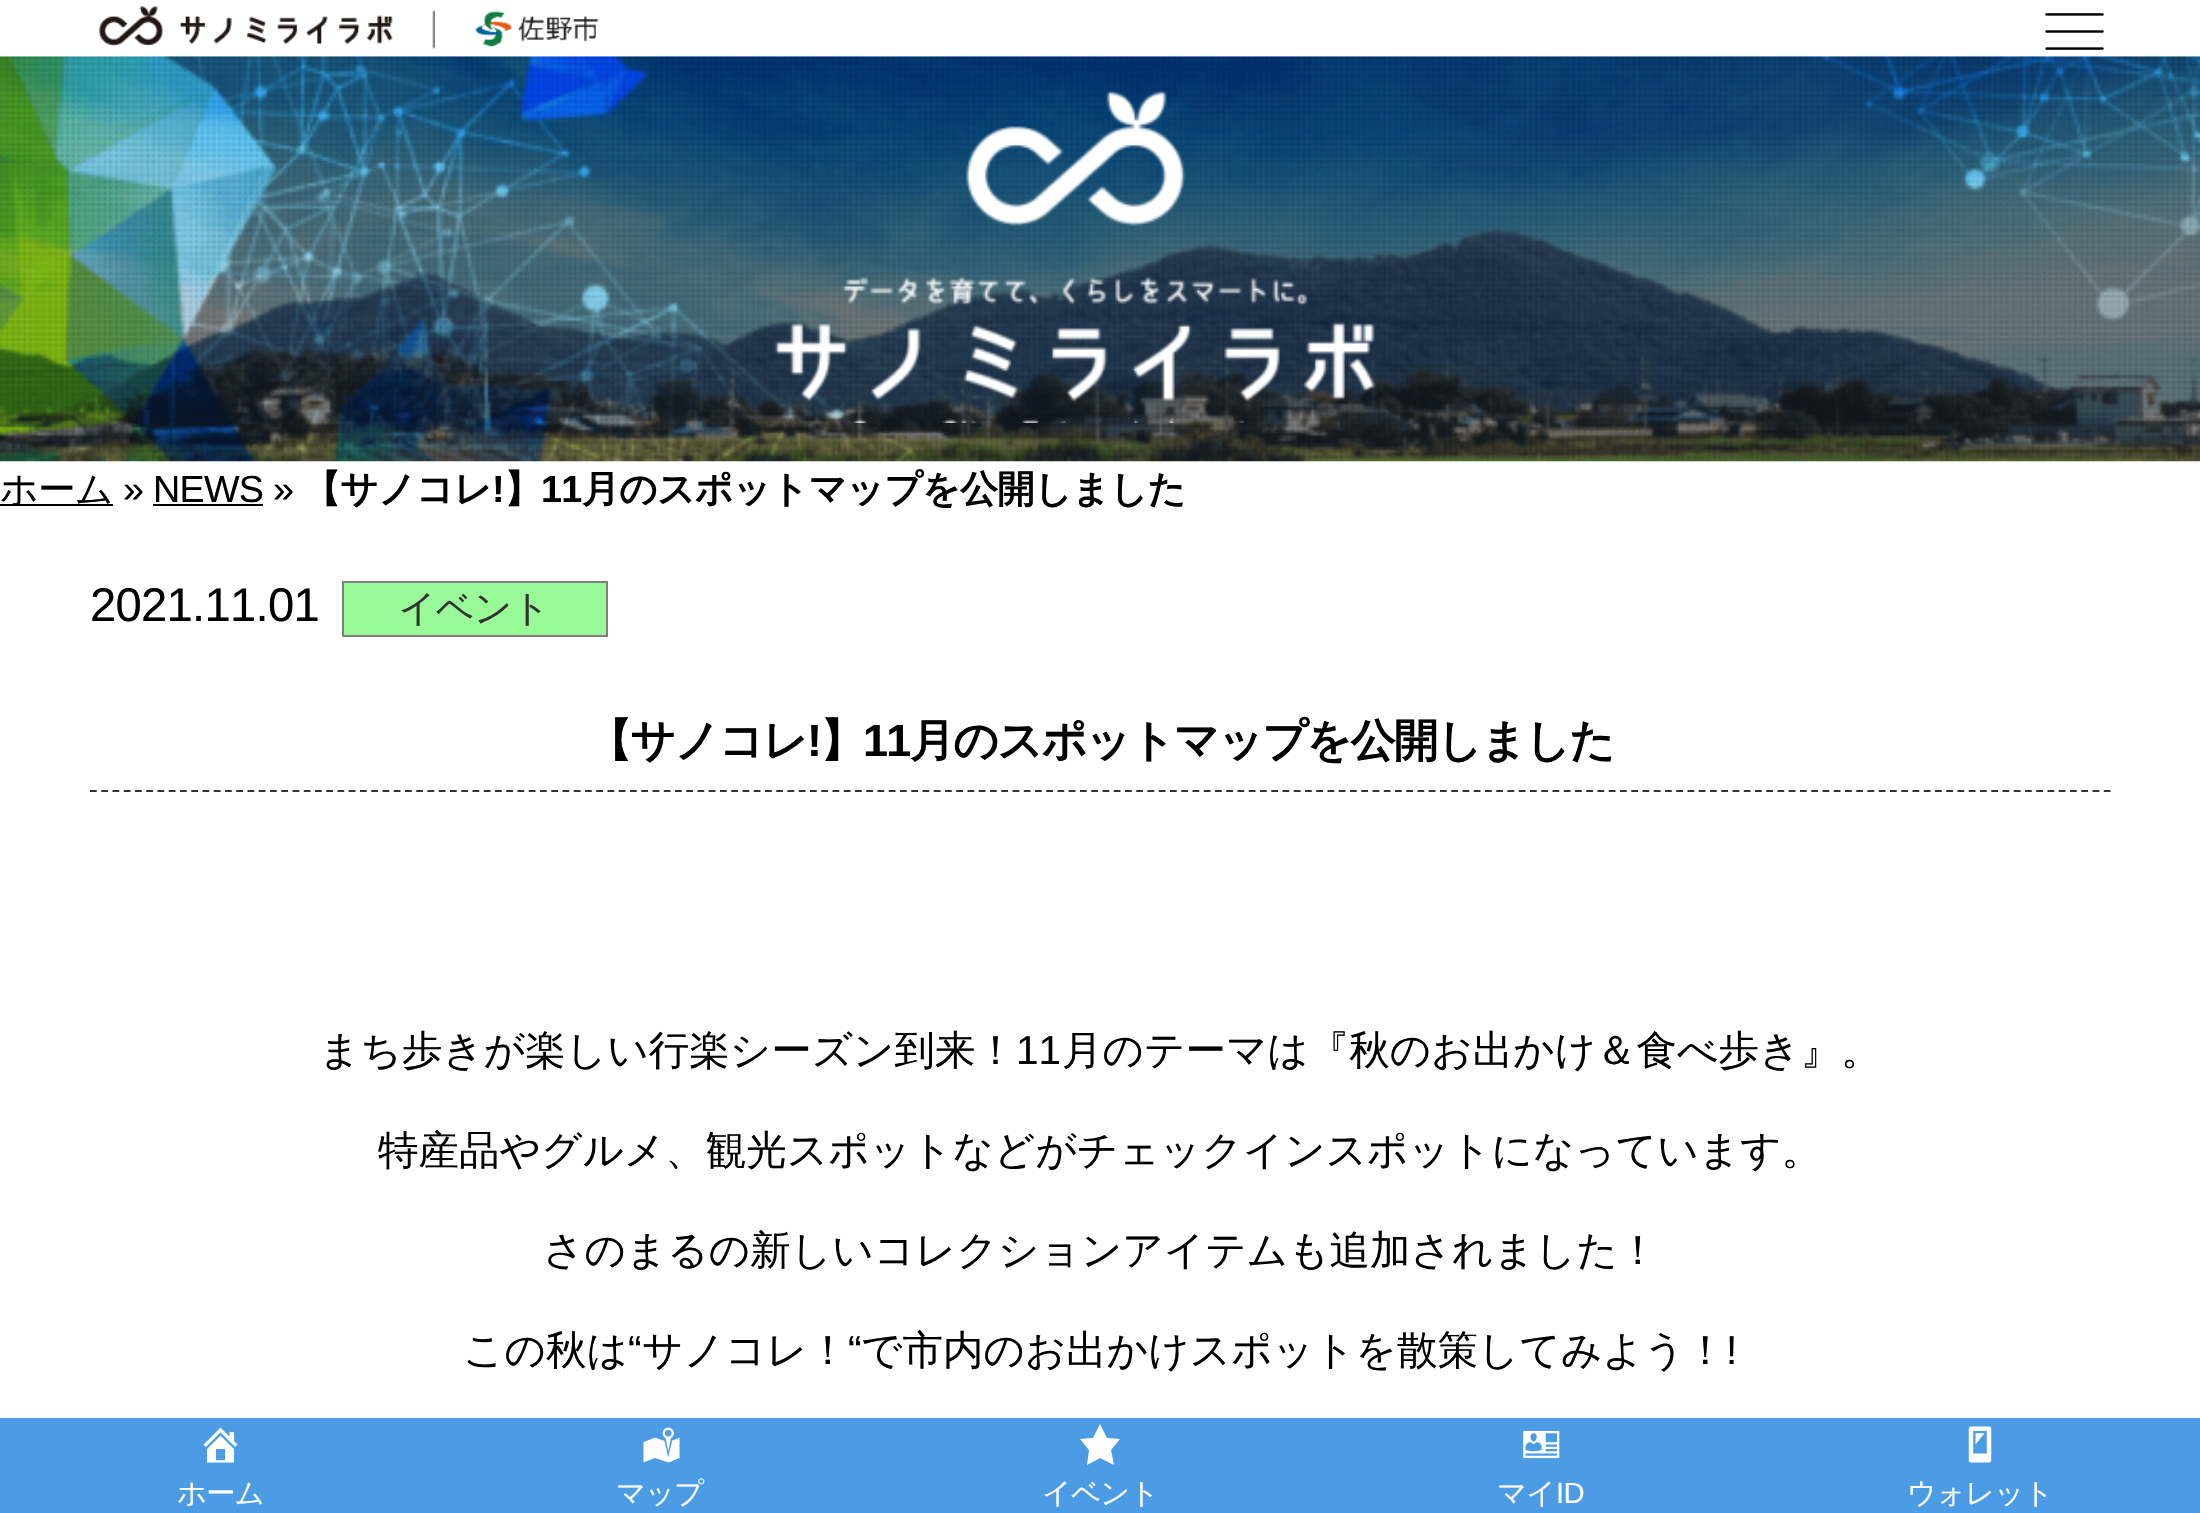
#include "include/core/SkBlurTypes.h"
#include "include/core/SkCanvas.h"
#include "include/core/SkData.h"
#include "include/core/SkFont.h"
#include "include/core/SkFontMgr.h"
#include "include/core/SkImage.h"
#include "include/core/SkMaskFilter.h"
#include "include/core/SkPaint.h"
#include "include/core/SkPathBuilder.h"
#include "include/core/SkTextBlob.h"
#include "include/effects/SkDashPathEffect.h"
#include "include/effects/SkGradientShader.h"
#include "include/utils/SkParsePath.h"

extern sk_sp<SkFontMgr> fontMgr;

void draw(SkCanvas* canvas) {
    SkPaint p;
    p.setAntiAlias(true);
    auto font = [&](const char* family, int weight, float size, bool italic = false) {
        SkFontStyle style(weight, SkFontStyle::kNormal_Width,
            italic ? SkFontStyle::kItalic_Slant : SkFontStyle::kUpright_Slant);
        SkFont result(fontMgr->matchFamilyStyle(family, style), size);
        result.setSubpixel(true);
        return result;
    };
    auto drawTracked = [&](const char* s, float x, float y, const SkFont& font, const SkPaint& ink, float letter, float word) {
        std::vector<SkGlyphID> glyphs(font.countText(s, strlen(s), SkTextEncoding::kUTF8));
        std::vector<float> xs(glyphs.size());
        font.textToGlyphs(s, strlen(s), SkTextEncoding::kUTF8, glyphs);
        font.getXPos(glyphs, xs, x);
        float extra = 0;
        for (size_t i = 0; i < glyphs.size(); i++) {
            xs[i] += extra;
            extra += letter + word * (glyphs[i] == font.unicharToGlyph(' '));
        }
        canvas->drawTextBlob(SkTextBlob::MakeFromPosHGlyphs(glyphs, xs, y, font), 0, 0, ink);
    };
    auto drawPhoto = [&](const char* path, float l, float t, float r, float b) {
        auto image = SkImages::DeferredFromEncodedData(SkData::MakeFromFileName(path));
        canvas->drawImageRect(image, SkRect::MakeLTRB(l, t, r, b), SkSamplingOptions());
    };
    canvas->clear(0xFFFFFFFF);
    drawPhoto("media/1.png", 98, 6, 599, 49);
    drawPhoto("media/2.png", 2045, 13, 2104, 50);
    drawPhoto("media/3.png", 0, 56, 2200, 462);
    drawPhoto("media/4.png", 775, 90, 1376, 423);
    p.setColor(0xFF000000);
    canvas->drawRect(SkRect::MakeLTRB(0, 504, 113, 506), p);
    auto font1 = font("WenQuanYi Zen Hei", 500, 37.75f);
    drawTracked("ホーム", 0, 502, font1, p, -0.75f, 0);
    auto font2 = font("Liberation Sans", 400, 37.75f);
    drawTracked("» NEWS »", 123, 502, font2, p, -0.75f, 0);
    canvas->drawRect(SkRect::MakeLTRB(153, 504, 263, 506), p);
    auto font3 = font("WenQuanYi Zen Hei", 700, 37.75f);
    drawTracked("【サノコレ", 303, 502, font3, p, -0.75f, 0);
    auto font4 = font("Liberation Sans", 700, 37.75f);
    drawTracked("!", 492, 502, font4, p, -0.75f, 0);
    drawTracked("】", 504, 502, font3, p, -0.75f, 0);
    drawTracked("11", 541, 502, font4, p, -0.75f, 0);
    drawTracked("月のスポットマップを公開しました", 582, 502, font3, p, -0.75f, 0);
    auto font5 = font("Liberation Sans", 400, 47.25f);
    drawTracked("2021.11.01", 90, 621, font5, p, -0.75f, 0);
    p.setColor(0xFF98FB98);
    canvas->drawRect(SkRect::MakeLTRB(343, 582, 607, 636), p);
    p.setStyle(SkPaint::kStroke_Style);
    p.setStrokeWidth(2);
    p.setColor(0xFF808080);
    canvas->drawRect(SkRect::MakeLTRB(343, 582, 607, 636), p);
    p.setStyle(SkPaint::kFill_Style);
    p.setColor(0xFF333333);
    drawTracked("イベント", 398, 621, font1, p, -0.75f, 0);
    p.setStyle(SkPaint::kStroke_Style);
    p.setStrokeWidth(2.2f);
    p.setPathEffect(SkDashPathEffect::Make({{6.75f, 4.5f}}, 0));
    canvas->drawPath(SkPathBuilder().moveTo(90, 791).lineTo(2110.5f, 791).detach(), p);
    p.setPathEffect(nullptr);
    auto font6 = font("WenQuanYi Zen Hei", 700, 45);
    p.setStyle(SkPaint::kFill_Style);
    p.setColor(0xFF000000);
    drawTracked("【サノコレ", 587, 756, font6, p, -1.9f, 0);
    auto font7 = font("Liberation Sans", 700, 45);
    drawTracked("!", 807, 756, font7, p, -1.9f, 0);
    drawTracked("】", 820, 756, font6, p, -1.9f, 0);
    drawTracked("11", 863, 756, font7, p, -1.9f, 0);
    drawTracked("月のスポットマップを公開しました", 910, 756, font6, p, -1.9f, 0);
    auto font8 = font("WenQuanYi Zen Hei", 500, 40.5f);
    canvas->drawString("まち歩きが楽しい行楽シーズン到来！", 319, 1064, font8, p);
    auto font9 = font("Liberation Sans", 400, 40.5f);
    canvas->drawString("11", 1016, 1064, font9, p);
    {
        const struct { const char* s; float x, y; } items[] = {
            {"月のテーマは『秋のお出かけ＆食べ歩き』。", 1062, 1064},
            {"特産品やグルメ、観光スポットなどがチェックインスポットになっています。", 378, 1164},
            {"さのまるの新しいコレクションアイテムも追加されました！", 543, 1264},
            {"この秋は", 463, 1364},
        };
        for (auto [s, x, y] : items) {
            canvas->drawString(s, x, y, font8, p);
        }
    }
    canvas->drawString("“", 628, 1364, font9, p);
    canvas->drawString("サノコレ！", 642, 1364, font8, p);
    canvas->drawString("“", 848, 1364, font9, p);
    canvas->drawString("で市内のお出かけスポットを散策してみよう！", 861, 1364, font8, p);
    canvas->drawString("!", 1726, 1364, font9, p);
    p.setColor(0xFF4B9BE5);
    canvas->drawRect(SkRect::MakeLTRB(0, 1418, 2200, 1513), p);
    drawPhoto("media/5.png", 203, 1427, 238, 1463);
    auto font10 = font("WenQuanYi Zen Hei", 500, 29.25f);
    p.setColor(0xFFFFFFFF);
    drawTracked("ホーム", 177, 1503, font10, p, -0.75f, 0);
    drawPhoto("media/6.png", 643, 1427, 680, 1463);
    drawTracked("マップ", 616, 1503, font10, p, -0.75f, 0);
    canvas->drawPath(SkPathBuilder().moveTo(1100, 1424).lineTo(1107, 1438).lineTo(1120, 1439).lineTo(1111, 1450).lineTo(1114, 1465).lineTo(1100, 1458).lineTo(1087, 1465).lineTo(1089, 1450).lineTo(1080, 1439).lineTo(1093, 1438).close().detach(), p);
    drawTracked("イベント", 1042, 1503, font10, p, -0.75f, 0);
    drawPhoto("media/7.png", 1523, 1430, 1560, 1459);
    drawTracked("マイ", 1497, 1503, font10, p, -0.75f, 0);
    auto font11 = font("Liberation Sans", 400, 29.25f);
    drawTracked("ID", 1556, 1503, font11, p, -0.75f, 0);
    drawPhoto("media/8.png", 1968, 1426, 1992, 1463);
    drawTracked("ウォレット", 1907, 1503, font10, p, -0.75f, 0);
}
